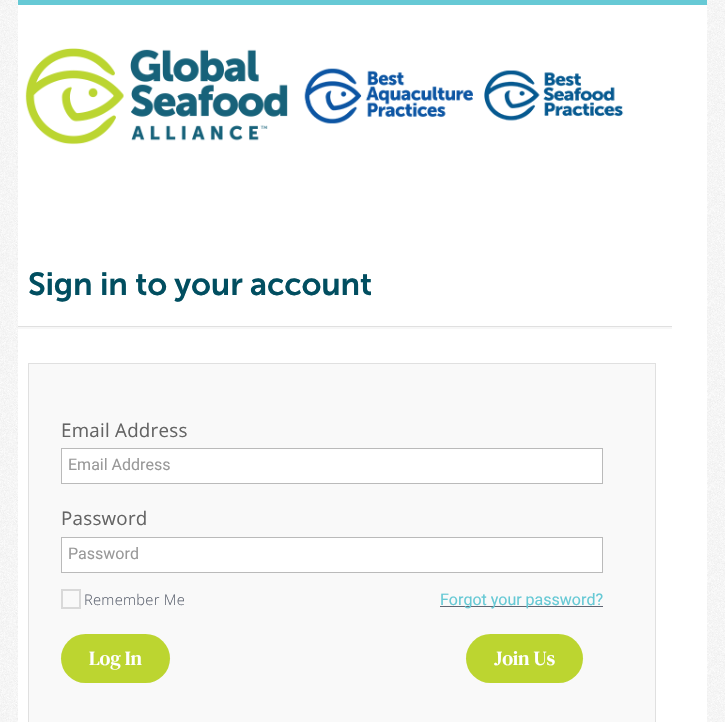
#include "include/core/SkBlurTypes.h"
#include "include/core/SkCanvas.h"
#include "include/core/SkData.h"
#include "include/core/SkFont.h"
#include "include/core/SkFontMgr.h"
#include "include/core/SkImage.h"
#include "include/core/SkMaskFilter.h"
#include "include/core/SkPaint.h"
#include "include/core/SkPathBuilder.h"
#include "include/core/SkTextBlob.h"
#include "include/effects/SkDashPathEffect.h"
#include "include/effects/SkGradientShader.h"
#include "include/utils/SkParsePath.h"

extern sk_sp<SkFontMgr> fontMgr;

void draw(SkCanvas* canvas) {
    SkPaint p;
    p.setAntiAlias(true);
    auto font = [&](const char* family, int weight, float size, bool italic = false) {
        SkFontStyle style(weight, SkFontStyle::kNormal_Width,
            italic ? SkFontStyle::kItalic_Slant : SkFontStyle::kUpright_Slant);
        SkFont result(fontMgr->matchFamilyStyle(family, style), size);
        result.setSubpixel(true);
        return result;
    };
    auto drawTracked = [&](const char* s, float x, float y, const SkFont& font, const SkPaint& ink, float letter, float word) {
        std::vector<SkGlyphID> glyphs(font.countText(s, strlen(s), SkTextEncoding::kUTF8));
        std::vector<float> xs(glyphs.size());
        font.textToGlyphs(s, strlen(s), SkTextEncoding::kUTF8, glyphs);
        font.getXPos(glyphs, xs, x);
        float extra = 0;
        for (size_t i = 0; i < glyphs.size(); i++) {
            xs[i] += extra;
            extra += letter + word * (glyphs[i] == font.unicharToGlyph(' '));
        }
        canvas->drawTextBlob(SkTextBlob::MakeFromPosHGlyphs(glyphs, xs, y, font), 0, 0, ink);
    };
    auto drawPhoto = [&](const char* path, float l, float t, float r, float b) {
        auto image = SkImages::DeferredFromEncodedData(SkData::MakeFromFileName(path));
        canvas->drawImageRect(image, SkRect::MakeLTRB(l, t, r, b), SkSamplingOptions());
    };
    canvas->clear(0xFFFFFFFF);
    drawPhoto("media/1.png", 0, 0, 725, 722);
    p.setColor(0xFFFFFFFF);
    canvas->drawRect(SkRect::MakeLTRB(18, 5, 707, 722), p);
    p.setColor(0xFF66C9D5);
    canvas->drawRect(SkRect::MakeLTRB(18, 0, 707, 5), p);
    drawPhoto("media/2.png", 25, 48, 624, 145);
    p.setColor(0xFFF7F7F7);
    canvas->drawRect(SkRect::MakeLTRB(18, 327, 672, 329), p);
    p.setColor(0xFFE0E0E0);
    canvas->drawRect(SkRect::MakeLTRB(18, 326, 672, 327), p);
    auto font1 = font("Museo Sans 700", 600, 32);
    p.setColor(0xFF014E60);
    drawTracked("Sign in to your account", 28, 295, font1, p, -0.2f, 0);
    p.setColor(0xFFF9F9F9);
    canvas->drawRect(SkRect::MakeLTRB(28.5f, 363.5f, 655.5f, 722.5f), p);
    p.setStyle(SkPaint::kStroke_Style);
    p.setStrokeWidth(1);
    p.setColor(0xFFE0E0E0);
    canvas->drawRect(SkRect::MakeLTRB(28.5f, 363.5f, 655.5f, 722.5f), p);
    auto font2 = font("Open Sans", 400, 18.75f);
    p.setStyle(SkPaint::kFill_Style);
    p.setColor(0xFF646464);
    drawTracked("Email Address", 61, 437, font2, p, 0.25f, 0);
    p.setColor(0xFFFFFFFF);
    canvas->drawRect(SkRect::MakeLTRB(61.5f, 448.5f, 602.5f, 483.5f), p);
    p.setStyle(SkPaint::kStroke_Style);
    p.setColor(0xFFBABABA);
    canvas->drawRect(SkRect::MakeLTRB(61.5f, 448.5f, 602.5f, 483.5f), p);
    auto font3 = font("Roboto", 400, 16);
    p.setStyle(SkPaint::kFill_Style);
    p.setColor(0xFF999999);
    canvas->drawString("Email Address", 68, 470, font3, p);
    p.setColor(0xFF646464);
    drawTracked("Password", 61, 525, font2, p, 0.25f, 0);
    p.setColor(0xFFFFFFFF);
    canvas->drawRect(SkRect::MakeLTRB(61.5f, 537.5f, 602.5f, 572.5f), p);
    p.setStyle(SkPaint::kStroke_Style);
    p.setColor(0xFFBABABA);
    canvas->drawRect(SkRect::MakeLTRB(61.5f, 537.5f, 602.5f, 572.5f), p);
    p.setStyle(SkPaint::kFill_Style);
    p.setColor(0xFF999999);
    canvas->drawString("Password", 68, 559, font3, p);
    p.setStyle(SkPaint::kStroke_Style);
    p.setStrokeWidth(2);
    p.setColor(0xFFD9D9D9);
    canvas->drawRect(SkRect::MakeLTRB(62, 590, 80, 608), p);
    auto font4 = font("Open Sans", 300, 14.75f);
    p.setStyle(SkPaint::kFill_Style);
    p.setColor(0xFF606673);
    drawTracked("Remember Me", 84, 605, font4, p, 0.25f, 0);
    canvas->drawRect(SkRect::MakeLTRB(440, 606, 603, 607), p);
    p.setColor(0xFF66C9D5);
    canvas->drawString("Forgot your password?", 440, 605, font3, p);
    p.setColor(0xFFBCD530);
    canvas->drawRoundRect(SkRect::MakeLTRB(61, 634, 170, 683), 24.5f, 24.5f, p);
    auto font5 = font("DM Serif Text", 400, 20);
    p.setColor(0xFFFFFFFF);
    drawTracked("Log In", 89, 665, font5, p, -0.2f, 0);
    p.setColor(0xFFBCD530);
    canvas->drawRoundRect(SkRect::MakeLTRB(466, 634, 583, 683), 24.5f, 24.5f, p);
    p.setColor(0xFFFFFFFF);
    drawTracked("Join Us", 494, 665, font5, p, -0.2f, 0);
}
